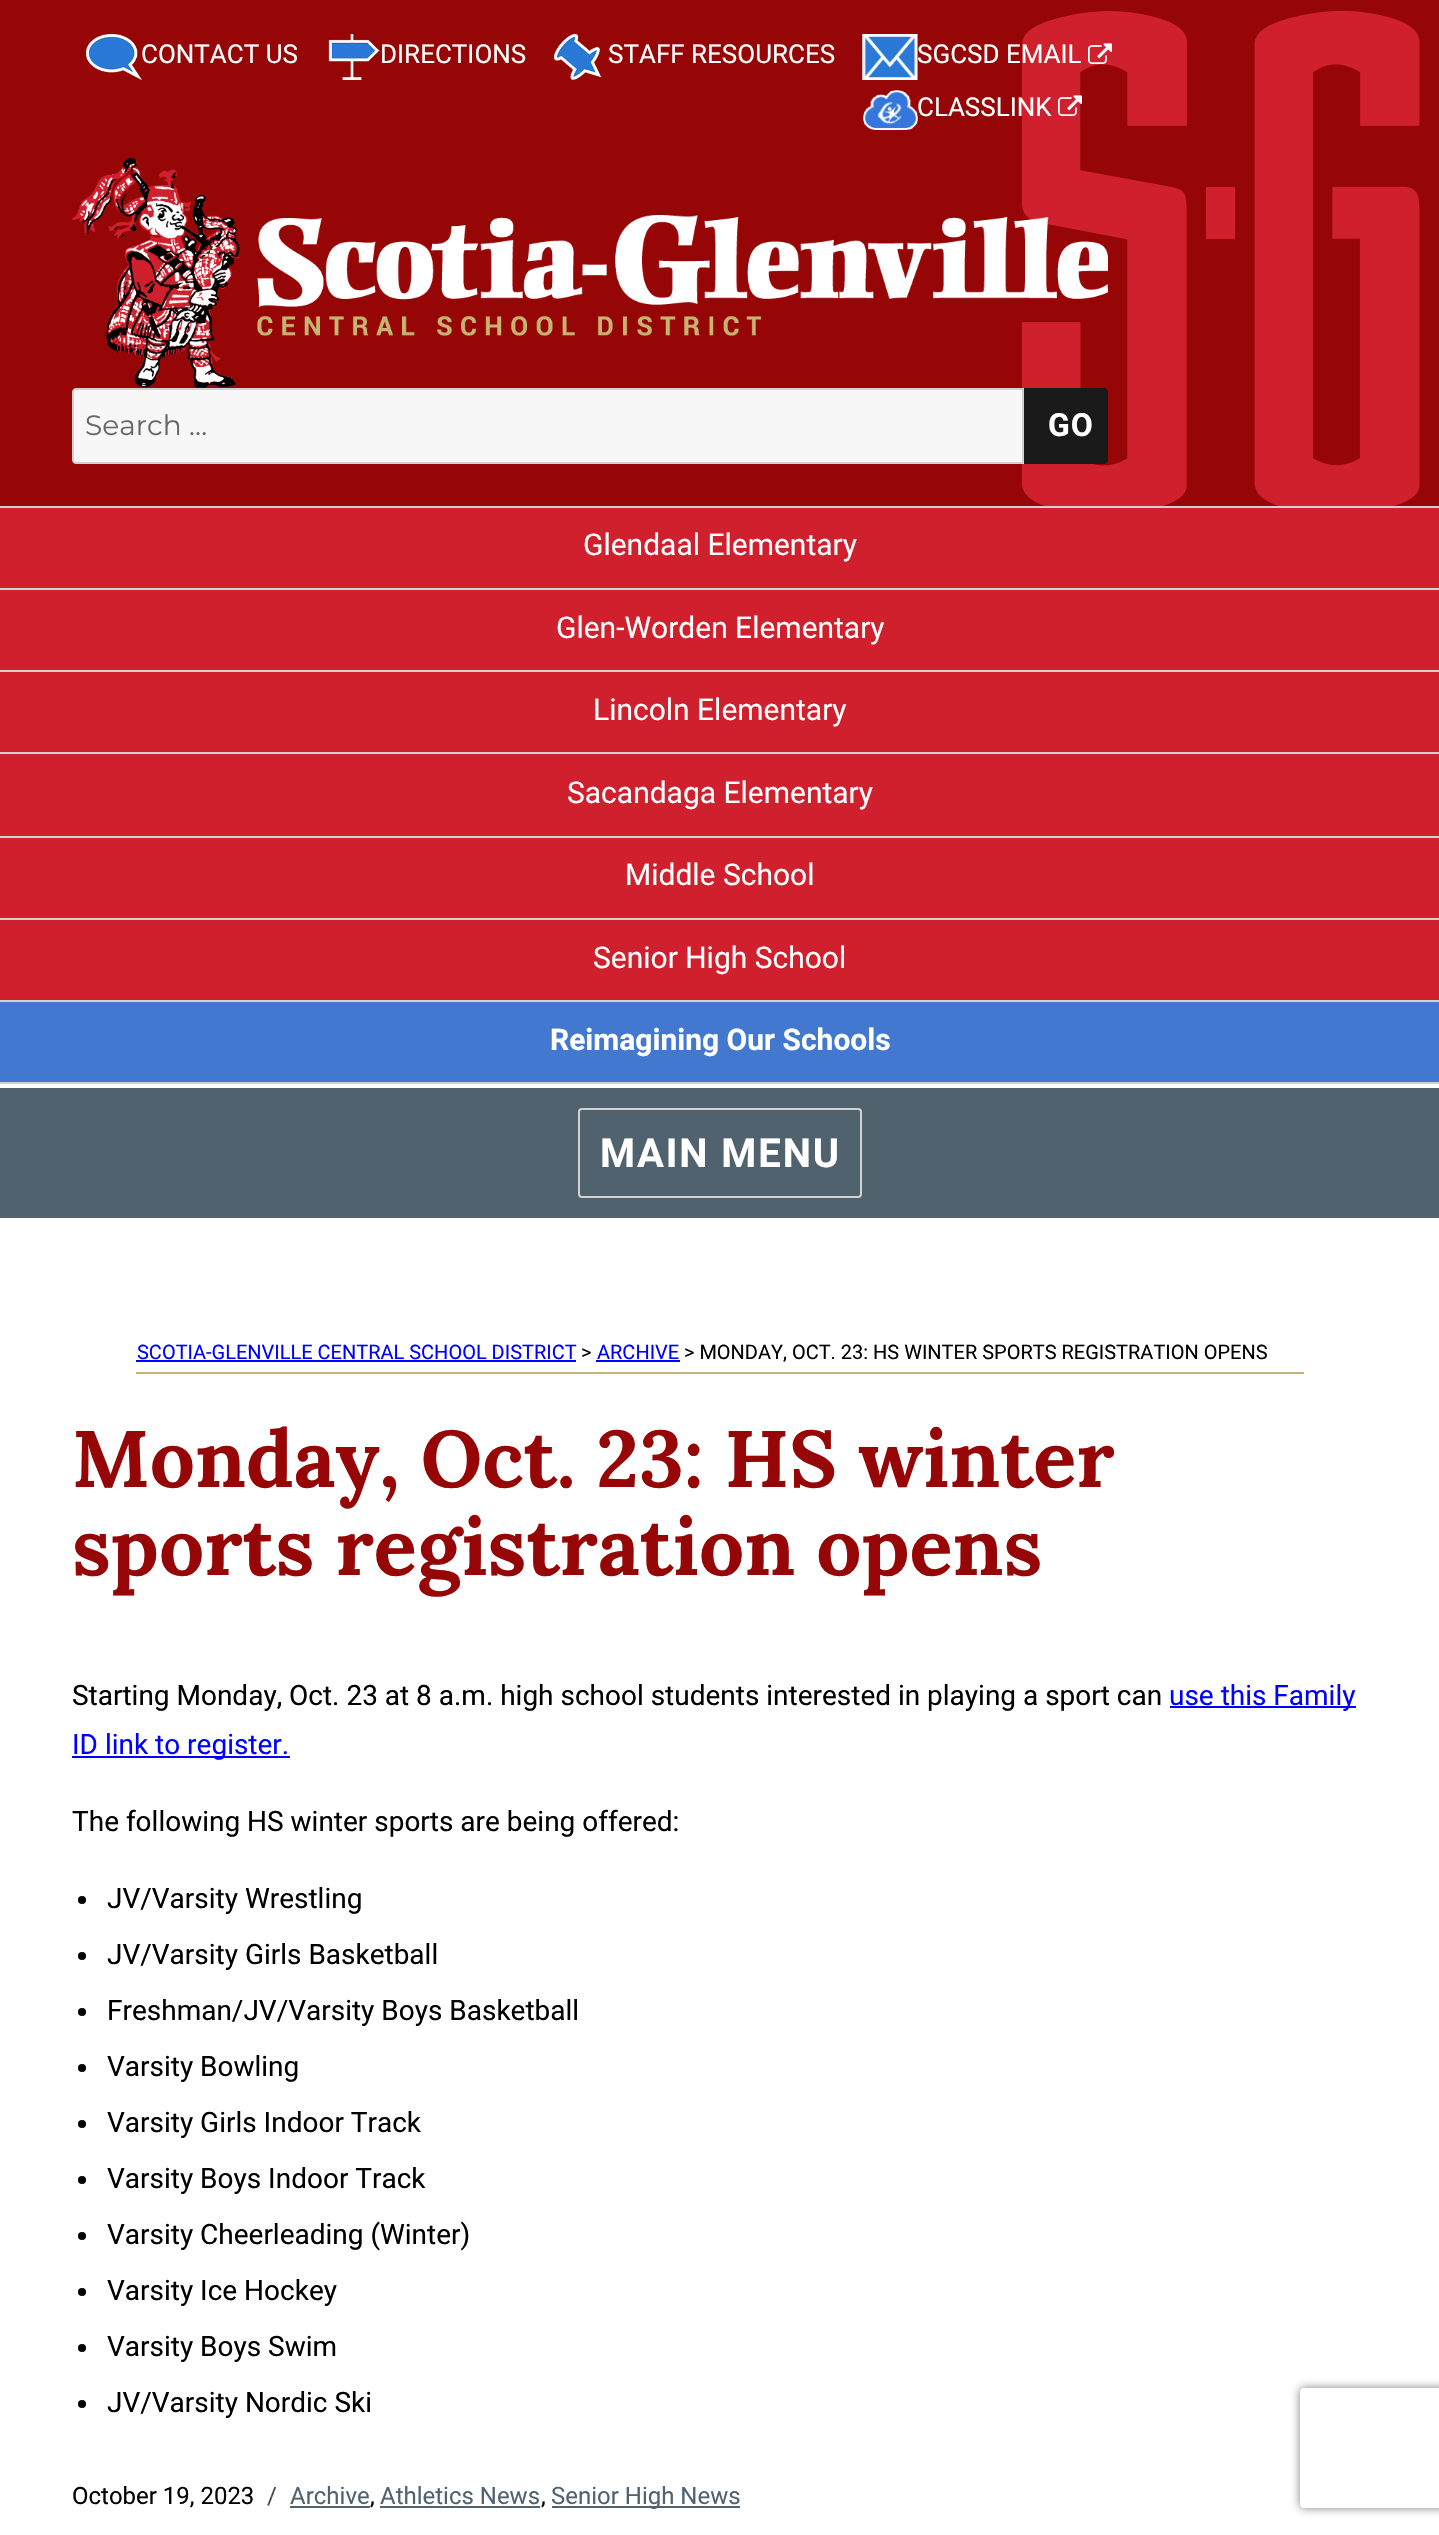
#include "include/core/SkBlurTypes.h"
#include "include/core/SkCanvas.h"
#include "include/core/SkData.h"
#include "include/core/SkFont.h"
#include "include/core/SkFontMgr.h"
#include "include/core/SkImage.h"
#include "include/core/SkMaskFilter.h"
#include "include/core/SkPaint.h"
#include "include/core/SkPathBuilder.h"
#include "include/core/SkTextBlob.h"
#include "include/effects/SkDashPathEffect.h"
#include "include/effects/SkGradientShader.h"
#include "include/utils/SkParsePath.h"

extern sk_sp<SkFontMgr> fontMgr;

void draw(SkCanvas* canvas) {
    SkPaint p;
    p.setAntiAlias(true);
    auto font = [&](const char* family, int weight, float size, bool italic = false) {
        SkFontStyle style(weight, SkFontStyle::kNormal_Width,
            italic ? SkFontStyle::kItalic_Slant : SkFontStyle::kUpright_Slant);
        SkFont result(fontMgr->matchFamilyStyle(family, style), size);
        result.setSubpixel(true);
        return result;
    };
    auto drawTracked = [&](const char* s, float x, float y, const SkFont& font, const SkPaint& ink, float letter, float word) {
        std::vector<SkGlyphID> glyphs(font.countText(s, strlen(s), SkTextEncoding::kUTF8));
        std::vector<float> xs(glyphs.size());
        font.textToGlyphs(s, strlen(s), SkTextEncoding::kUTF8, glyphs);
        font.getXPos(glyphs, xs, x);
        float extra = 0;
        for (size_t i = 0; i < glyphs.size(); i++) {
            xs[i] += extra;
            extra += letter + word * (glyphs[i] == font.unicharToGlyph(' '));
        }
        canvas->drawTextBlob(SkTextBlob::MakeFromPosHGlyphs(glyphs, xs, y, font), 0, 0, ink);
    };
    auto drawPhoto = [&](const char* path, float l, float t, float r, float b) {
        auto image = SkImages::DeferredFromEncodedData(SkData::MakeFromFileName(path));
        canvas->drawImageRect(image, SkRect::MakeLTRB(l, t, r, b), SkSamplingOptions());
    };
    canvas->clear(0xFFFFFFFF);
    p.setColor(0xFF960606);
    canvas->drawRect(SkRect::MakeLTRB(0, 0, 1439, 506), p);
    drawPhoto("media/1.png", 1022, 10, 1420, 506);
    drawPhoto("media/2.png", 86, 34, 142, 80);
    auto font1 = font("Roboto", 400, 26);
    p.setColor(0xFFFFFFFF);
    canvas->drawString("CONTACT US", 141, 63, font1, p);
    drawPhoto("media/3.png", 328, 34, 380, 80);
    canvas->drawString("DIRECTIONS", 380, 63, font1, p);
    drawPhoto("media/4.png", 553, 34, 602, 80);
    canvas->drawString("STAFF RESOURCES", 608, 63, font1, p);
    drawPhoto("media/5.png", 862, 34, 918, 80);
    canvas->drawString("SGCSD EMAIL", 917, 63, font1, p);
    drawPhoto("media/6.png", 1088, 43, 1112, 64);
    drawPhoto("media/7.png", 863, 90, 918, 130);
    canvas->drawString("CLASSLINK", 917, 116, font1, p);
    drawPhoto("media/8.png", 1058, 95, 1082, 116);
    drawPhoto("media/9.png", 72, 158, 1108, 388);
    p.setColor(0xFFF7F7F7);
    canvas->drawPath(SkPathBuilder().moveTo(76, 389).lineTo(1023, 389).lineTo(1023, 463).lineTo(76, 463).cubicTo(74.5f, 463, 73, 461.5f, 73, 460).lineTo(73, 392).cubicTo(73, 390.5f, 74.5f, 389, 76, 389).close().detach(), p);
    p.setStyle(SkPaint::kStroke_Style);
    p.setStrokeWidth(2);
    p.setColor(0xFFD1D1D1);
    canvas->drawPath(SkPathBuilder().moveTo(76, 389).lineTo(1023, 389).lineTo(1023, 463).lineTo(76, 463).cubicTo(74.5f, 463, 73, 461.5f, 73, 460).lineTo(73, 392).cubicTo(73, 390.5f, 74.5f, 389, 76, 389).close().detach(), p);
    auto font2 = font("Montserrat", 100, 28);
    p.setStyle(SkPaint::kFill_Style);
    p.setColor(0xFF686868);
    canvas->drawString("Search …", 85, 435, font2, p);
    p.setColor(0xFF1A1A1A);
    canvas->drawPath(SkPathBuilder().moveTo(1024, 388).lineTo(1104, 388).cubicTo(1106, 388, 1108, 390, 1108, 392).lineTo(1108, 460).cubicTo(1108, 462, 1106, 464, 1104, 464).lineTo(1024, 464).close().detach(), p);
    auto font3 = font("Roboto", 700, 32);
    p.setColor(0xFFFFFFFF);
    drawTracked("GO", 1048, 436, font3, p, 1, 0);
    {
        const struct { float l, t, r, b; SkColor color; } items[] = {
            {0, 508, 1439, 1000, 0xFFD0202E},
            {0, 1082, 1439, 1084, 0xFFD1D1D1},
            {0, 506, 1439, 508, 0xFFD1D1D1},
        };
        for (auto [l, t, r, b, color] : items) {
            p.setColor(color);
            canvas->drawRect(SkRect::MakeLTRB(l, t, r, b), p);
        }
    }
    auto font4 = font("Roboto", 400, 30);
    p.setColor(0xFFFFFFFF);
    canvas->drawString("Glendaal Elementary", 583, 555, font4, p);
    p.setColor(0xFFD1D1D1);
    canvas->drawRect(SkRect::MakeLTRB(0, 588, 1439, 590), p);
    p.setColor(0xFFFFFFFF);
    canvas->drawString("Glen-Worden Elementary", 556, 638, font4, p);
    p.setColor(0xFFD1D1D1);
    canvas->drawRect(SkRect::MakeLTRB(0, 670, 1439, 672), p);
    p.setColor(0xFFFFFFFF);
    canvas->drawString("Lincoln Elementary", 593, 720, font4, p);
    p.setColor(0xFFD1D1D1);
    canvas->drawRect(SkRect::MakeLTRB(0, 752, 1439, 754), p);
    p.setColor(0xFFFFFFFF);
    canvas->drawString("Sacandaga Elementary", 567, 803, font4, p);
    p.setColor(0xFFD1D1D1);
    canvas->drawRect(SkRect::MakeLTRB(0, 836, 1439, 838), p);
    p.setColor(0xFFFFFFFF);
    canvas->drawString("Middle School", 625, 885, font4, p);
    p.setColor(0xFFD1D1D1);
    canvas->drawRect(SkRect::MakeLTRB(0, 918, 1439, 920), p);
    p.setColor(0xFFFFFFFF);
    canvas->drawString("Senior High School", 593, 968, font4, p);
    p.setColor(0xFF4278D0);
    canvas->drawRect(SkRect::MakeLTRB(0, 1002, 1439, 1082), p);
    p.setColor(0xFFD1D1D1);
    canvas->drawRect(SkRect::MakeLTRB(0, 1000, 1439, 1002), p);
    auto font5 = font("Roboto", 700, 30);
    p.setColor(0xFFFFFFFF);
    canvas->drawString("Reimagining Our Schools", 550, 1050, font5, p);
    p.setColor(0xFF51626F);
    canvas->drawRect(SkRect::MakeLTRB(0, 1088, 1439, 1218), p);
    p.setStyle(SkPaint::kStroke_Style);
    p.setColor(0xFFD1D1D1);
    canvas->drawRoundRect(SkRect::MakeLTRB(579, 1109, 861, 1197), 3, 3, p);
    auto font6 = font("Roboto", 700, 40);
    p.setStyle(SkPaint::kFill_Style);
    p.setColor(0xFFFFFFFF);
    drawTracked("MAIN MENU", 600, 1167, font6, p, 1.9f, 0);
    p.setColor(0xFFC6B571);
    canvas->drawRect(SkRect::MakeLTRB(136, 1372, 1304, 1374), p);
    auto font7 = font("Roboto", 400, 20);
    p.setColor(0xFF0000FF);
    canvas->drawString("SCOTIA-GLENVILLE CENTRAL SCHOOL DISTRICT", 137, 1359, font7, p);
    canvas->drawRect(SkRect::MakeLTRB(136, 1360, 576, 1362), p);
    p.setColor(0xFF000000);
    canvas->drawString(">", 581, 1359, font7, p);
    p.setColor(0xFF0000FF);
    canvas->drawString("ARCHIVE", 597, 1359, font7, p);
    canvas->drawRect(SkRect::MakeLTRB(596, 1360, 680, 1362), p);
    p.setColor(0xFF000000);
    canvas->drawString("> MONDAY, OCT. 23: HS WINTER SPORTS REGISTRATION OPENS", 684, 1359, font7, p);
    auto font8 = font("Lora", 700, 80);
    p.setColor(0xFF960606);
    canvas->drawString("Monday, Oct. 23: HS winter", 72, 1487, font8, p);
    canvas->drawString("sports registration opens", 72, 1575, font8, p);
    auto font9 = font("Roboto", 400, 28);
    p.setColor(0xFF000000);
    canvas->drawString("Starting Monday, Oct. 23 at 8 a.m. high school students interested in playing a sport can", 72, 1705, font9, p);
    p.setColor(0xFF0000FF);
    canvas->drawRect(SkRect::MakeLTRB(1170, 1706, 1356, 1708), p);
    canvas->drawString("use this Family", 1169, 1705, font9, p);
    canvas->drawRect(SkRect::MakeLTRB(72, 1756, 290, 1758), p);
    canvas->drawString("ID link to register.", 72, 1754, font9, p);
    p.setColor(0xFF000000);
    canvas->drawString("The following HS winter sports are being offered:", 72, 1831, font9, p);
    canvas->drawCircle(82, 1900, 4, p);
    canvas->drawString("JV/Varsity Wrestling", 107, 1908, font9, p);
    canvas->drawCircle(82, 1956, 4, p);
    canvas->drawString("JV/Varsity Girls Basketball", 107, 1964, font9, p);
    canvas->drawCircle(82, 2012, 4, p);
    canvas->drawString("Freshman/JV/Varsity Boys Basketball", 107, 2020, font9, p);
    canvas->drawCircle(82, 2068, 4, p);
    canvas->drawString("Varsity Bowling", 107, 2076, font9, p);
    canvas->drawCircle(82, 2124, 4, p);
    canvas->drawString("Varsity Girls Indoor Track", 107, 2132, font9, p);
    canvas->drawCircle(82, 2180, 4, p);
    canvas->drawString("Varsity Boys Indoor Track", 107, 2188, font9, p);
    canvas->drawCircle(82, 2236, 4, p);
    canvas->drawString("Varsity Cheerleading (Winter)", 107, 2244, font9, p);
    canvas->drawCircle(82, 2292, 4, p);
    canvas->drawString("Varsity Ice Hockey", 107, 2300, font9, p);
    canvas->drawCircle(82, 2348, 4, p);
    canvas->drawString("Varsity Boys Swim", 107, 2356, font9, p);
    canvas->drawCircle(82, 2404, 4, p);
    canvas->drawString("JV/Varsity Nordic Ski", 107, 2412, font9, p);
    auto font10 = font("Roboto", 400, 24);
    canvas->drawString("October 19, 2023", 72, 2504, font10, p);
    p.setColor(0xFF4D4D4D);
    canvas->drawString("/", 267, 2504, font10, p);
    p.setColor(0xFF51626F);
    canvas->drawString("Archive", 290, 2504, font10, p);
    p.setColor(0xFF000000);
    canvas->drawString(",", 370, 2504, font10, p);
    p.setColor(0xFF51626F);
    canvas->drawRect(SkRect::MakeLTRB(290, 2506, 370, 2508), p);
    canvas->drawString("Athletics News", 380, 2504, font10, p);
    p.setColor(0xFF000000);
    canvas->drawString(",", 541, 2504, font10, p);
    p.setColor(0xFF51626F);
    canvas->drawRect(SkRect::MakeLTRB(380, 2506, 540, 2508), p);
    canvas->drawRect(SkRect::MakeLTRB(552, 2506, 740, 2508), p);
    canvas->drawString("Senior High News", 551, 2504, font10, p);
    canvas->save();
    canvas->clipPath(SkPathBuilder(SkPathFillType::kEvenOdd).moveTo(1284, 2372).lineTo(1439, 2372).lineTo(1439, 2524).lineTo(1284, 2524).close().moveTo(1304, 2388).lineTo(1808, 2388).cubicTo(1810, 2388, 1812, 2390, 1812, 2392).lineTo(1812, 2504).cubicTo(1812, 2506, 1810, 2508, 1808, 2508).lineTo(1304, 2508).cubicTo(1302, 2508, 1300, 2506, 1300, 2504).lineTo(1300, 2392).cubicTo(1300, 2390, 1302, 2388, 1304, 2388).close().detach(), true);
    p.setColor(0xFF808080);
    p.setMaskFilter(SkMaskFilter::MakeBlur(kNormal_SkBlurStyle, 5));
    canvas->drawRoundRect(SkRect::MakeLTRB(1300, 2388, 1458, 2508), 4, 4, p);
    p.setMaskFilter(nullptr);
    canvas->restore();
}
